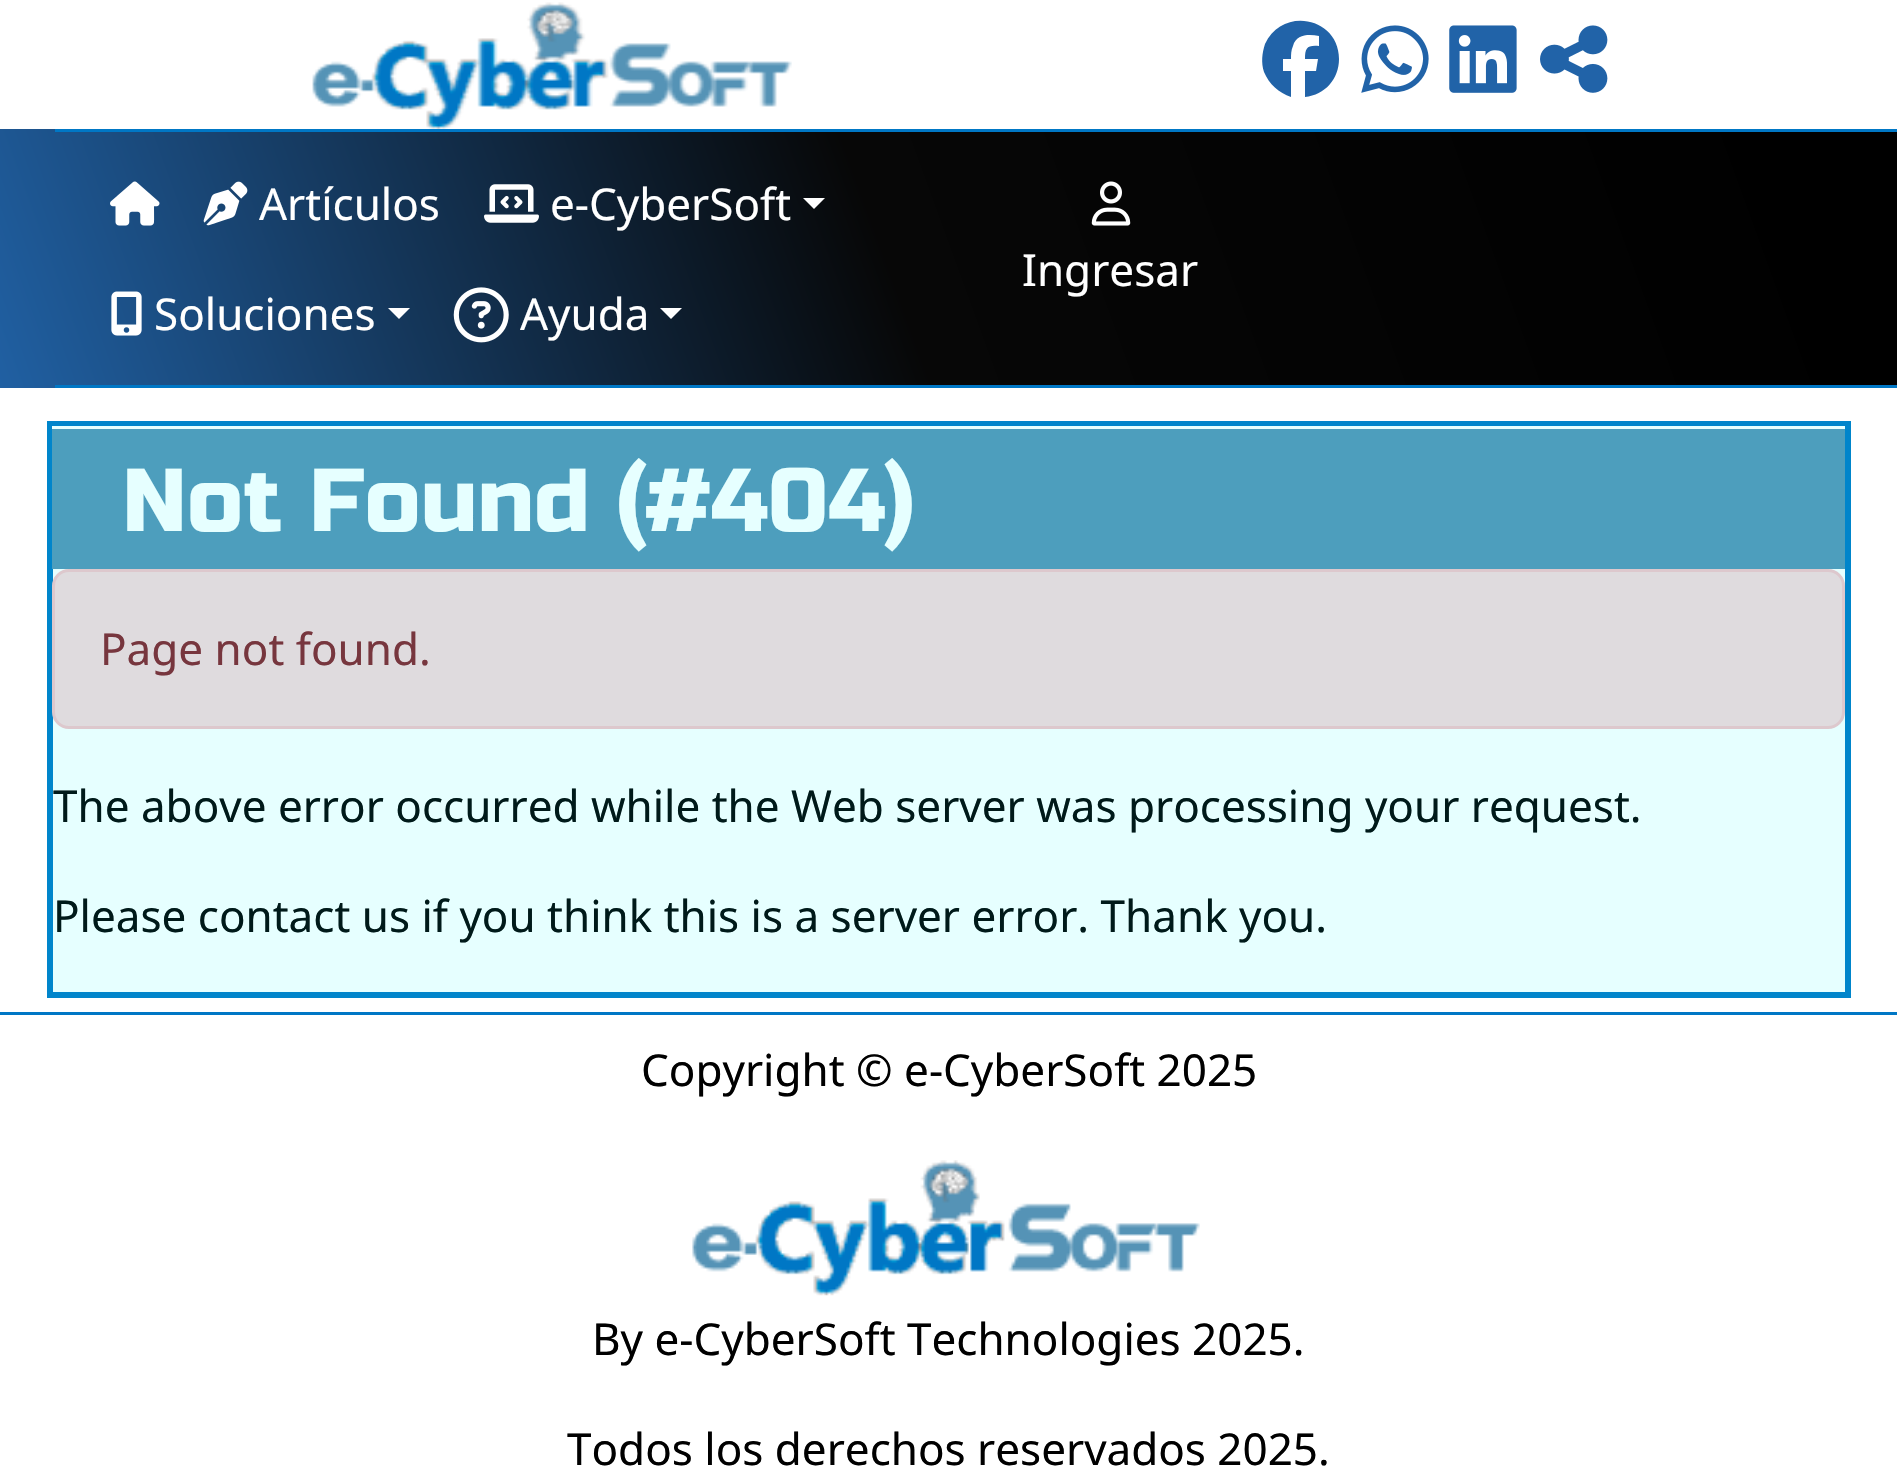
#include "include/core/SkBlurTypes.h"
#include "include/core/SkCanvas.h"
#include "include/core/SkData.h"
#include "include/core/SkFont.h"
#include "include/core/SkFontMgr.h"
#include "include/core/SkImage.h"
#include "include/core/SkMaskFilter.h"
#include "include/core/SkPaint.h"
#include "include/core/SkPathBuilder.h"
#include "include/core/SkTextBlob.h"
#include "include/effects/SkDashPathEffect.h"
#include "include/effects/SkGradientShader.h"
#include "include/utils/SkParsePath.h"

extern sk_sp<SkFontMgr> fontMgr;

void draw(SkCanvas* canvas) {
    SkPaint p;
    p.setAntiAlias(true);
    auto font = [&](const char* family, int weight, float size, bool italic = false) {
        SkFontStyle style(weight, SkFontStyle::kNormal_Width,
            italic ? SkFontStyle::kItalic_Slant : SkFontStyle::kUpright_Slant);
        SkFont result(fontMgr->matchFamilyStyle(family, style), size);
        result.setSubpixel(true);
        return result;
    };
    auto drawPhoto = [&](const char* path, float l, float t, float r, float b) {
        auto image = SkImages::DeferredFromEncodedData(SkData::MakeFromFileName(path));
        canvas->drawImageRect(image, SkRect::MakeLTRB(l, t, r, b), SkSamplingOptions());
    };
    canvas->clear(0xFFFFFFFF);
    drawPhoto("media/1.png", 312, 2, 792, 129);
    p.setColor(0xFF2163A8);
    canvas->drawPath(SkPathBuilder().moveTo(1339, 59).cubicTo(1339, 17, 1282, 6, 1265, 44).cubicTo(1262, 53, 1261, 63, 1264, 72).cubicTo(1269, 84, 1279, 93, 1291, 97).lineTo(1291, 71).lineTo(1283, 71).lineTo(1283, 59).lineTo(1291, 59).cubicTo(1291, 55, 1291, 50, 1293, 46).cubicTo(1296, 34, 1309, 34, 1319, 36).lineTo(1319, 46).cubicTo(1307, 45, 1305, 48, 1305, 59).lineTo(1318, 59).lineTo(1316, 71).lineTo(1305, 71).lineTo(1305, 97).cubicTo(1325, 95, 1339, 79, 1339, 59).close().detach(), p);
    drawPhoto("media/2.png", 1361, 25, 1429, 93);
    drawPhoto("media/3.png", 1449, 25, 1517, 93);
    drawPhoto("media/4.png", 1540, 25, 1608, 93);
    {
        const SkColor colors[] = {0xFF2163A8, 0xFF070707, 0xFF000000};
        const float stops[] = {0, 0.47f, 0.93f};
        const SkPoint ends[] = {{40, 589}, {1857, -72}};
        p.setShader(SkGradientShader::MakeLinear(ends, colors, stops, 3, SkTileMode::kClamp));
        p.setAlpha(255);
    }
    canvas->drawRect(SkRect::MakeLTRB(0, 129, 1897, 388), p);
    p.setShader(nullptr);
    p.setColor(0xFF0077C5);
    canvas->drawRect(SkRect::MakeLTRB(55, 129, 1897, 132), p);
    canvas->drawRect(SkRect::MakeLTRB(55, 385, 1897, 388), p);
    drawPhoto("media/5.png", 110, 181, 160, 226);
    drawPhoto("media/6.png", 203, 181, 248, 226);
    auto font1 = font("Noto Sans", 400, 44);
    p.setColor(0xFFFFFFFF);
    canvas->drawString("Artículos", 259, 220, font1, p);
    drawPhoto("media/7.png", 484, 184, 539, 223);
    canvas->drawString("e-CyberSoft", 550, 220, font1, p);
    canvas->drawPath(SkPathBuilder().moveTo(803, 198).lineTo(825, 198).lineTo(814, 209).close().detach(), p);
    drawPhoto("media/8.png", 111, 291, 142, 336);
    canvas->drawString("Soluciones", 154, 330, font1, p);
    canvas->drawPath(SkPathBuilder().moveTo(388, 308).lineTo(410, 308).lineTo(399, 319).close().detach(), p);
    drawPhoto("media/9.png", 453, 287, 509, 343);
    canvas->drawString("Ayuda", 520, 330, font1, p);
    canvas->drawPath(SkPathBuilder().moveTo(660, 308).lineTo(682, 308).lineTo(671, 319).close().detach(), p);
    drawPhoto("media/10.png", 1091, 181, 1131, 226);
    canvas->drawString("Ingresar", 1022, 286, font1, p);
    p.setColor(0xFFE6FFFF);
    canvas->drawRect(SkRect::MakeLTRB(53, 569, 1845, 992), p);
    p.setStyle(SkPaint::kStroke_Style);
    p.setStrokeWidth(6);
    p.setColor(0xFF0085CB);
    canvas->drawRect(SkRect::MakeLTRB(50, 424, 1848, 995), p);
    p.setStyle(SkPaint::kFill_Style);
    p.setColor(0xFF4D9EBD);
    canvas->drawRect(SkRect::MakeLTRB(52, 429, 1845, 569), p);
    p.setColor(0xFFE6FFFF);
    canvas->drawRect(SkRect::MakeLTRB(52, 426, 1845, 429), p);
    auto font2 = font("Russo One", 400, 89);
    canvas->drawString("Not Found (#404)", 122, 531, font2, p);
    p.setColor(0xFFDFDBDE);
    canvas->drawRoundRect(SkRect::MakeLTRB(53.5f, 570.5f, 1843.5f, 727.5f), 15.5f, 15.5f, p);
    p.setStyle(SkPaint::kStroke_Style);
    p.setStrokeWidth(3);
    p.setColor(0xFFDDC8CD);
    canvas->drawRoundRect(SkRect::MakeLTRB(53.5f, 570.5f, 1843.5f, 727.5f), 15.5f, 15.5f, p);
    p.setStyle(SkPaint::kFill_Style);
    p.setColor(0xFF77363E);
    canvas->drawString("Page not found.", 100, 665, font1, p);
    p.setColor(0xFF001A1A);
    canvas->drawString("The above error occurred while the Web server was processing your request.", 53, 822, font1, p);
    canvas->drawString("Please contact us if you think this is a server error. Thank you.", 53, 932, font1, p);
    p.setColor(0xFF0077C5);
    canvas->drawRect(SkRect::MakeLTRB(0, 1012, 1897, 1015), p);
    p.setColor(0xFF000000);
    canvas->drawString("Copyright © e-CyberSoft 2025", 641, 1086, font1, p);
    drawPhoto("media/11.png", 692, 1160, 1200, 1296);
    canvas->drawString("By e-CyberSoft Technologies 2025.", 592, 1355, font1, p);
    canvas->drawString("Todos los derechos reservados 2025.", 567, 1465, font1, p);
}
